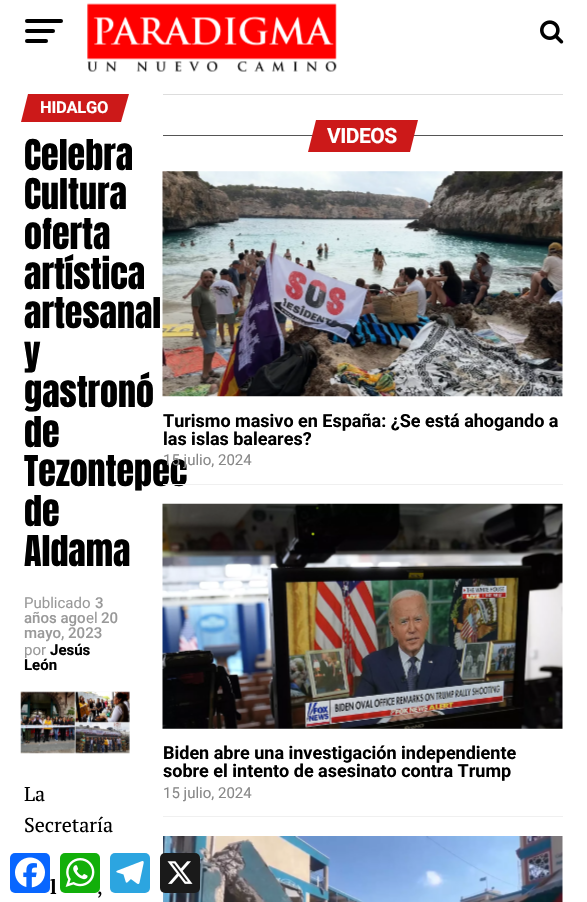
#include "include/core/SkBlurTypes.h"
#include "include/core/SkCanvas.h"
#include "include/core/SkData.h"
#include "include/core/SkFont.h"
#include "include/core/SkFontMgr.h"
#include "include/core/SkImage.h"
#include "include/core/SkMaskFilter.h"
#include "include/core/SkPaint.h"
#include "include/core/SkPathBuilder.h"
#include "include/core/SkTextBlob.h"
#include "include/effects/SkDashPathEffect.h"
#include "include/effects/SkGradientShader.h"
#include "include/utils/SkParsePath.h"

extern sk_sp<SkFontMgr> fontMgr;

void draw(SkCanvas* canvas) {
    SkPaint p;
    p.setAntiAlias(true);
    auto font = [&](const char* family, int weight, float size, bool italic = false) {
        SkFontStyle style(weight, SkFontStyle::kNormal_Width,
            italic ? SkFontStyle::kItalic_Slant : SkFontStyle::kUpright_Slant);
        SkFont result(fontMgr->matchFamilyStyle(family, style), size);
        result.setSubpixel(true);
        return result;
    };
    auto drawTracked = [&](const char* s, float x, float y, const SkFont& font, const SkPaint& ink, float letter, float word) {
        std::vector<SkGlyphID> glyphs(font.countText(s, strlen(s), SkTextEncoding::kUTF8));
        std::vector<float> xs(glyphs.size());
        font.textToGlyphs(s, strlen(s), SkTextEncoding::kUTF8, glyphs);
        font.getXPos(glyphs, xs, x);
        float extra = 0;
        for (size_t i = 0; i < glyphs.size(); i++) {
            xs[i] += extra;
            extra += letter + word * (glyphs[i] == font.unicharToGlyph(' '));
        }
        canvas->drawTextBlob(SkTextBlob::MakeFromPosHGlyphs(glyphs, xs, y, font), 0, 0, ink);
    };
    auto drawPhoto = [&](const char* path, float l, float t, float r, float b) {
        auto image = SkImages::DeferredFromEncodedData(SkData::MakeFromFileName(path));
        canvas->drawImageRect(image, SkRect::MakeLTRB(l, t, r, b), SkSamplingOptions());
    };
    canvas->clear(0xFFFFFFFF);
    p.setColor(0xFF000000);
    canvas->drawRoundRect(SkRect::MakeLTRB(25, 19, 63, 23), 2, 2, p);
    canvas->drawRoundRect(SkRect::MakeLTRB(25, 29, 55, 33), 2, 2, p);
    canvas->drawRoundRect(SkRect::MakeLTRB(25, 39, 48, 43), 2, 2, p);
    drawPhoto("media/1.png", 87, 3, 337, 72);
    drawPhoto("media/2.png", 540, 20, 564, 44);
    p.setColor(0xFFCC1919);
    canvas->drawPath(SkPathBuilder().moveTo(28, 94).lineTo(129, 94).lineTo(121, 122).lineTo(21, 122).close().detach(), p);
    auto font1 = font("Roboto", 700, 16.5f);
    p.setColor(0xFFFFFFFF);
    drawTracked("HIDALGO", 40, 113, font1, p, -0.25f, 0);
    auto font2 = font("Anton", 400, 36);
    p.setColor(0xFF000000);
    {
        const struct { const char* s; float x, y; } items[] = {
            {"Celebra", 24, 170},
            {"Cultura", 24, 209},
            {"oferta", 24, 249},
            {"artística", 24, 289},
            {"artesanal", 24, 328},
            {"y", 24, 368},
            {"gastronó", 24, 407},
            {"de", 24, 447},
            {"Tezontepec", 24, 486},
            {"de", 24, 526},
            {"Aldama", 24, 566},
        };
        for (auto [s, x, y] : items) {
            canvas->drawString(s, x, y, font2, p);
        }
    }
    auto font3 = font("Roboto", 400, 15);
    p.setColor(0xFF999999);
    canvas->drawString("Publicado", 24, 608, font3, p);
    auto font4 = font("Roboto", 500, 15);
    canvas->drawString("3", 95, 608, font4, p);
    canvas->drawString("años ago", 24, 623, font4, p);
    canvas->drawString("el", 86, 623, font3, p);
    canvas->drawString("20", 101, 623, font4, p);
    canvas->drawString("mayo, 2023", 24, 638, font4, p);
    canvas->drawString("por", 24, 655, font3, p);
    auto font5 = font("Roboto", 700, 15);
    p.setColor(0xFF000000);
    canvas->drawString("Jesús", 50, 655, font5, p);
    canvas->drawString("León", 24, 670, font5, p);
    drawPhoto("media/3.png", 20, 691, 130, 754);
    auto font6 = font("PT Serif", 400, 20);
    canvas->drawString("La", 24, 801, font6, p);
    canvas->drawString("Secretaría", 24, 832, font6, p);
    auto font7 = font("PT Serif", 700, 20);
    canvas->drawString("l", 50, 894, font7, p);
    canvas->drawString(",", 97, 894, font6, p);
    p.setColor(0xFFDDDDDD);
    canvas->drawRect(SkRect::MakeLTRB(163, 94, 563, 95), p);
    p.setColor(0xFF555555);
    canvas->drawRect(SkRect::MakeLTRB(163, 135, 563, 136), p);
    p.setColor(0xFFCC1919);
    canvas->drawPath(SkPathBuilder().moveTo(316, 120).lineTo(418, 120).lineTo(410, 152).lineTo(308, 152).close().detach(), p);
    auto font8 = font("Roboto", 700, 21);
    p.setColor(0xFFFFFFFF);
    drawTracked("VIDEOS", 327, 143, font8, p, -0.5f, 0);
    p.setColor(0xFFF0F0F0);
    canvas->drawRect(SkRect::MakeLTRB(163, 484, 563, 485), p);
    drawPhoto("media/4.png", 162, 171, 563, 397);
    auto font9 = font("Roboto", 700, 18);
    p.setColor(0xFF000000);
    canvas->drawString("Turismo masivo en España: ¿Se está ahogando a", 163, 427, font9, p);
    canvas->drawString("las islas baleares?", 163, 445, font9, p);
    p.setColor(0xFF888888);
    canvas->drawString("15 julio, 2024", 163, 465, font3, p);
    p.setColor(0xFFF0F0F0);
    canvas->drawRect(SkRect::MakeLTRB(163, 816, 563, 817), p);
    drawPhoto("media/5.png", 162, 503, 563, 729);
    p.setColor(0xFF000000);
    canvas->drawString("Biden abre una investigación independiente", 163, 759, font9, p);
    canvas->drawString("sobre el intento de asesinato contra Trump", 163, 777, font9, p);
    p.setColor(0xFF888888);
    canvas->drawString("15 julio, 2024", 163, 798, font3, p);
    drawPhoto("media/6.png", 163, 836, 563, 902);
    p.setColor(0xFF0866FF);
    canvas->drawRoundRect(SkRect::MakeLTRB(10, 853, 50, 893), 5, 5, p);
    drawPhoto("media/7.png", 15, 857, 45, 888);
    p.setColor(0xFF12AF0A);
    canvas->drawRoundRect(SkRect::MakeLTRB(60, 853, 100, 893), 5, 5, p);
    drawPhoto("media/8.png", 65, 858, 95, 887);
    p.setColor(0xFF2CA5E0);
    canvas->drawRoundRect(SkRect::MakeLTRB(110, 853, 150, 893), 5, 5, p);
    drawPhoto("media/9.png", 116, 861, 144, 884);
    p.setColor(0xFF1A1A1A);
    canvas->drawRoundRect(SkRect::MakeLTRB(160, 853, 200, 893), 5, 5, p);
    drawPhoto("media/10.png", 167, 861, 193, 884);
}
